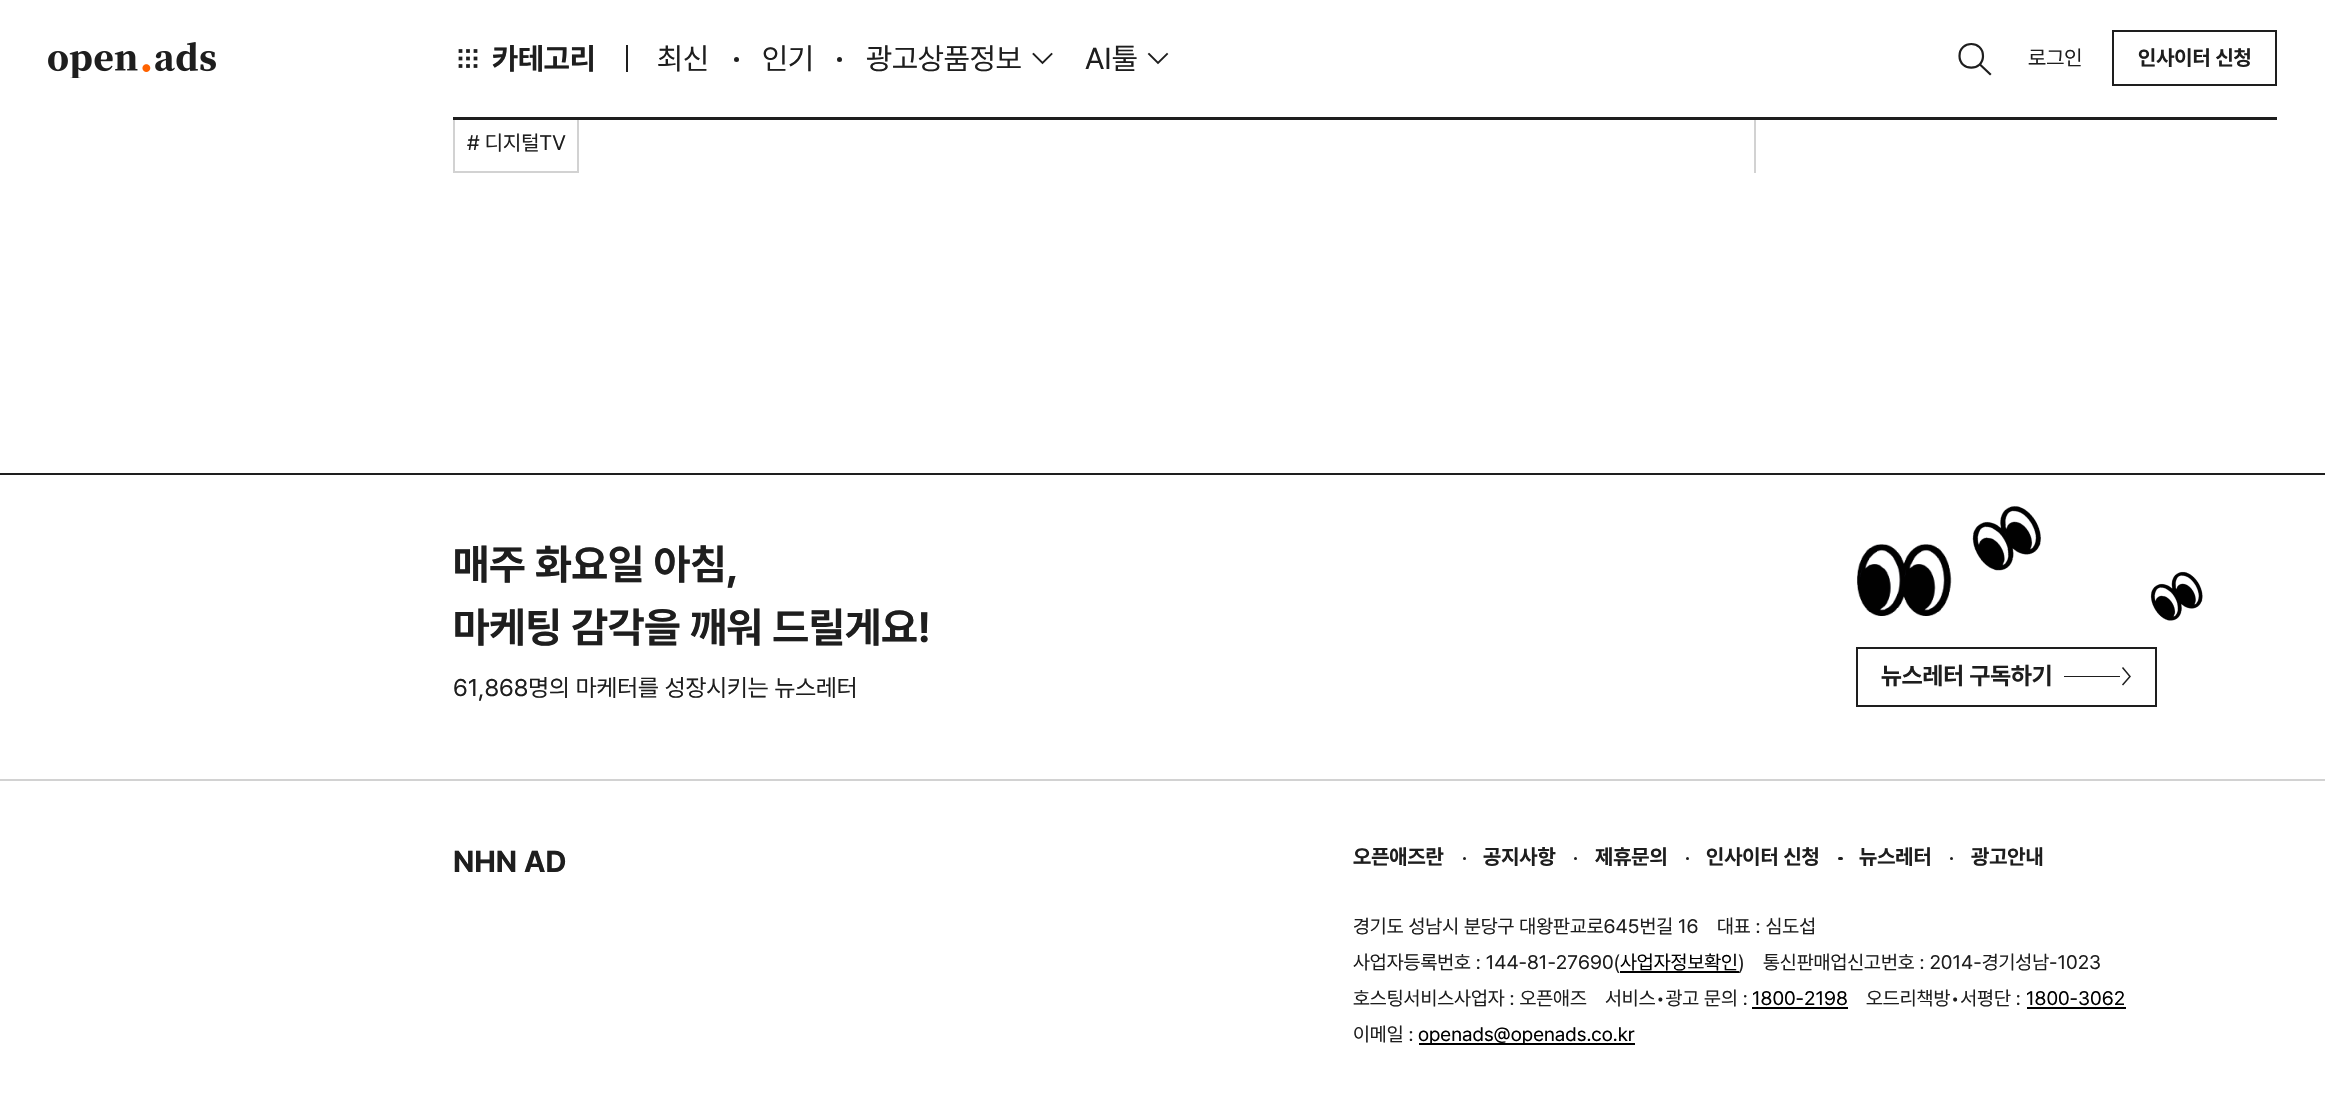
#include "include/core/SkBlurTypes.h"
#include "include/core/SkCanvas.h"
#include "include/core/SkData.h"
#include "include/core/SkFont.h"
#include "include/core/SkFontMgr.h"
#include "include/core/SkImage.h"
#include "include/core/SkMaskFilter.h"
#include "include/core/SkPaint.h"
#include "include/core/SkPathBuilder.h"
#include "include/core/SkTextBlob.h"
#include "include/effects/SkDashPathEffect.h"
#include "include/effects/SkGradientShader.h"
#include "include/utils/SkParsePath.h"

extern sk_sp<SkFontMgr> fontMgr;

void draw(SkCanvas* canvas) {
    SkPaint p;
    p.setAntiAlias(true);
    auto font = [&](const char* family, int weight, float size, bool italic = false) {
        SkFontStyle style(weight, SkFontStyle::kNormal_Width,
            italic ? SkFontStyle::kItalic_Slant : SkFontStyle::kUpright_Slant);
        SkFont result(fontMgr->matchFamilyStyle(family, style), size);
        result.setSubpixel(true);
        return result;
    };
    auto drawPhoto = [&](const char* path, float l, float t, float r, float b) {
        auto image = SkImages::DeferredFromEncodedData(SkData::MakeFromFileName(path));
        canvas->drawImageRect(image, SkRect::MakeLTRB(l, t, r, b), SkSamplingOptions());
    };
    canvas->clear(0xFFFFFFFF);
    p.setStyle(SkPaint::kStroke_Style);
    p.setStrokeWidth(2);
    p.setColor(0xFFD2D2D2);
    canvas->drawRect(SkRect::MakeLTRB(454, 115, 578, 172), p);
    p.setStyle(SkPaint::kFill_Style);
    p.setColor(0xFFFFFFFF);
    canvas->drawRect(SkRect::MakeLTRB(453, 114, 579, 120), p);
    drawPhoto("media/1.png", 48, 42, 216, 78);
    p.setColor(0xFF1E1E1E);
    canvas->drawRect(SkRect::MakeLTRB(453, 117, 2277, 120), p);
    drawPhoto("media/2.png", 458, 49, 478, 68);
    auto font1 = font("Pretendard", 700, 30);
    canvas->drawString("카테고리", 492, 69, font1, p);
    canvas->drawRect(SkRect::MakeLTRB(626, 45, 628, 72), p);
    auto font2 = font("Pretendard", 400, 30);
    canvas->drawString("최신", 657, 69, font2, p);
    canvas->drawCircle(736.5f, 59.5f, 2.5f, p);
    canvas->drawString("인기", 762, 69, font2, p);
    canvas->drawCircle(839.5f, 59.5f, 2.5f, p);
    canvas->drawString("광고상품정보", 866, 69, font2, p);
    p.setStyle(SkPaint::kStroke_Style);
    p.setStrokeWidth(1.9f);
    p.setStrokeCap(SkPaint::kSquare_Cap);
    canvas->drawPath(SkPathBuilder().moveTo(1033.5f, 54).lineTo(1042.5f, 63).lineTo(1051.5f, 54).detach(), p);
    p.setStyle(SkPaint::kFill_Style);
    canvas->drawString("AI툴", 1085, 69, font2, p);
    p.setStyle(SkPaint::kStroke_Style);
    canvas->drawPath(SkPathBuilder().moveTo(1149, 54).lineTo(1158, 63).lineTo(1167, 54).detach(), p);
    p.setStrokeWidth(2.2f);
    canvas->drawPath(SkPathBuilder().moveTo(1980.5f, 65).lineTo(1990, 74).moveTo(1983, 56).cubicTo(1983, 71.5f, 1959.5f, 71.5f, 1959.5f, 56).cubicTo(1959.5f, 40, 1983, 40, 1983, 56).close().detach(), p);
    auto font3 = font("Pretendard", 400, 21);
    p.setStyle(SkPaint::kFill_Style);
    canvas->drawString("로그인", 2028, 65, font3, p);
    p.setStyle(SkPaint::kStroke_Style);
    p.setStrokeWidth(2);
    p.setStrokeCap(SkPaint::kButt_Cap);
    canvas->drawRect(SkRect::MakeLTRB(2113, 31, 2276, 85), p);
    auto font4 = font("Pretendard", 700, 21);
    p.setStyle(SkPaint::kFill_Style);
    canvas->drawString("인사이터 신청", 2138, 65, font4, p);
    p.setColor(0xFFD2D2D2);
    canvas->drawRect(SkRect::MakeLTRB(1754, 120, 1756, 173), p);
    p.setColor(0xFF1E1E1E);
    canvas->drawString("# 디지털TV", 467, 150, font3, p);
    canvas->drawRect(SkRect::MakeLTRB(0, 473, 2325, 475), p);
    drawPhoto("media/3.png", 1857, 506, 2203, 621);
    auto font5 = font("Pretendard", 700, 42);
    canvas->drawString("매주 화요일 아침,", 453, 579, font5, p);
    canvas->drawString("마케팅 감각을 깨워 드릴게요!", 453, 642, font5, p);
    auto font6 = font("Pretendard", 400, 24);
    canvas->drawString("61,868명의 마케터를 성장시키는 뉴스레터", 453, 696, font6, p);
    p.setStyle(SkPaint::kStroke_Style);
    canvas->drawRect(SkRect::MakeLTRB(1857, 648, 2156, 706), p);
    auto font7 = font("Pretendard", 700, 24);
    p.setStyle(SkPaint::kFill_Style);
    canvas->drawString("뉴스레터 구독하기", 1881, 684, font7, p);
    canvas->drawRect(SkRect::MakeLTRB(2064, 676, 2120, 677), p);
    p.setStyle(SkPaint::kStroke_Style);
    p.setStrokeWidth(1.5f);
    canvas->drawPath(SkPathBuilder().moveTo(2122.5f, 667.5f).lineTo(2130, 676.5f).lineTo(2122.5f, 685).detach(), p);
    p.setStyle(SkPaint::kFill_Style);
    p.setColor(0xFFD2D2D2);
    canvas->drawRect(SkRect::MakeLTRB(0, 779, 2325, 781), p);
    p.setColor(0xFF1E1E1E);
    canvas->drawString("NHN AD", 453, 872, font1, p);
    canvas->drawString("오픈애즈란", 1353, 864, font4, p);
    canvas->drawCircle(1464.5f, 858.5f, 1.5f, p);
    canvas->drawString("공지사항", 1483, 864, font4, p);
    canvas->drawCircle(1575.5f, 858.5f, 1.5f, p);
    canvas->drawString("제휴문의", 1595, 864, font4, p);
    canvas->drawCircle(1687.5f, 858.5f, 1.5f, p);
    canvas->drawString("인사이터 신청", 1706, 864, font4, p);
    canvas->drawRoundRect(SkRect::MakeLTRB(1838, 857, 1843, 860), 1.5f, 1.5f, p);
    canvas->drawString("뉴스레터", 1859, 864, font4, p);
    canvas->drawCircle(1951.5f, 858.5f, 1.5f, p);
    canvas->drawString("광고안내", 1971, 864, font4, p);
    auto font8 = font("Pretendard", 400, 19.5f);
    {
        const struct { const char* s; float x, y; } items[] = {
            {"경기도 성남시 분당구 대왕판교로645번길 16", 1353, 933},
            {"대표 : 심도섭", 1717, 933},
            {"사업자등록번호 : 144-81-27690(", 1353, 969},
        };
        for (auto [s, x, y] : items) {
            canvas->drawString(s, x, y, font8, p);
        }
    }
    p.setColor(0xFF000000);
    canvas->drawString("사업자정보확인", 1620, 969, font8, p);
    canvas->drawRect(SkRect::MakeLTRB(1620, 971, 1739, 973), p);
    p.setColor(0xFF1E1E1E);
    {
        const struct { const char* s; float x, y; } items[] = {
            {")", 1738, 969},
            {"통신판매업신고번호 : 2014-경기성남-1023", 1763, 969},
            {"호스팅서비스사업자 : 오픈애즈", 1353, 1005},
            {"서비스•광고 문의 :", 1605, 1005},
        };
        for (auto [s, x, y] : items) {
            canvas->drawString(s, x, y, font8, p);
        }
    }
    p.setColor(0xFF000000);
    canvas->drawString("1800-2198", 1752, 1005, font8, p);
    canvas->drawRect(SkRect::MakeLTRB(1752, 1007, 1848, 1009), p);
    p.setColor(0xFF1E1E1E);
    canvas->drawString("오드리책방•서평단 :", 1866, 1005, font8, p);
    p.setColor(0xFF000000);
    canvas->drawString("1800-3062", 2026, 1005, font8, p);
    canvas->drawRect(SkRect::MakeLTRB(2027, 1007, 2126, 1009), p);
    p.setColor(0xFF1E1E1E);
    canvas->drawString("이메일 :", 1353, 1041, font8, p);
    p.setColor(0xFF000000);
    canvas->drawRect(SkRect::MakeLTRB(1419, 1043, 1635, 1045), p);
    canvas->drawString("openads@openads.co.kr", 1418, 1041, font8, p);
}
